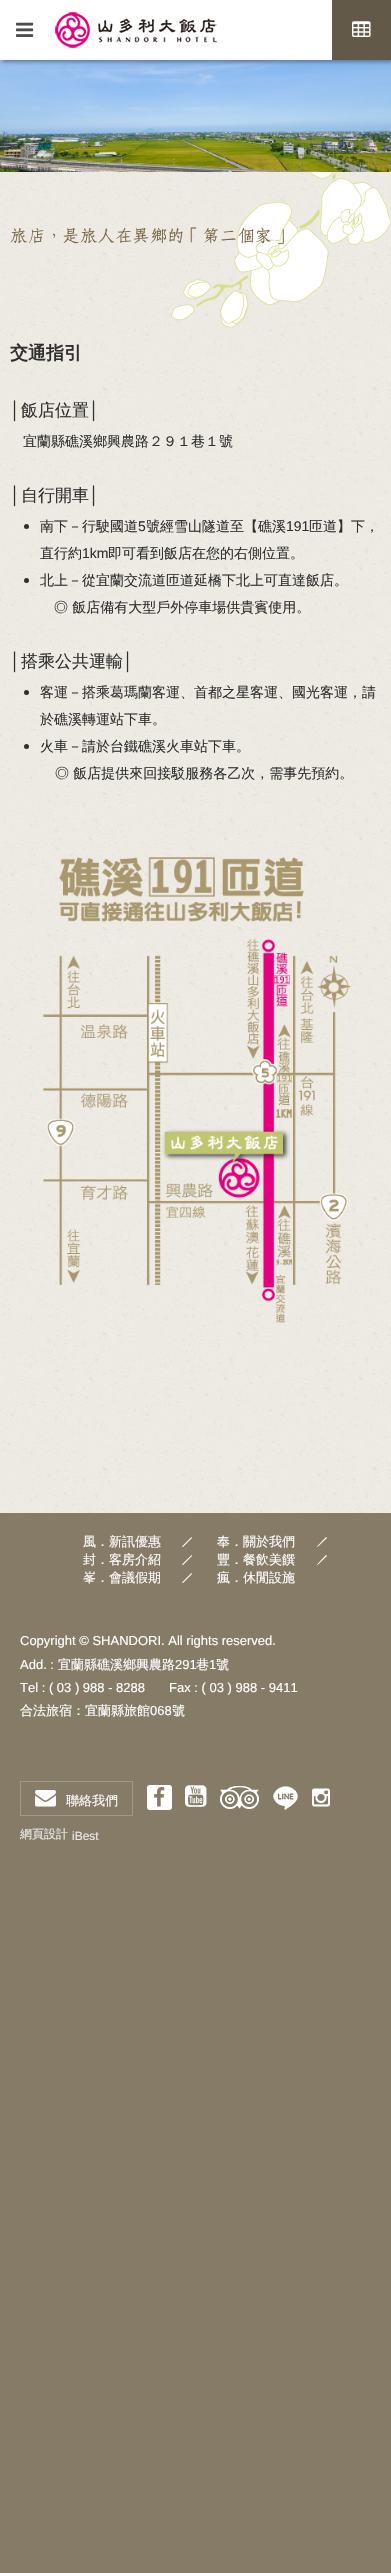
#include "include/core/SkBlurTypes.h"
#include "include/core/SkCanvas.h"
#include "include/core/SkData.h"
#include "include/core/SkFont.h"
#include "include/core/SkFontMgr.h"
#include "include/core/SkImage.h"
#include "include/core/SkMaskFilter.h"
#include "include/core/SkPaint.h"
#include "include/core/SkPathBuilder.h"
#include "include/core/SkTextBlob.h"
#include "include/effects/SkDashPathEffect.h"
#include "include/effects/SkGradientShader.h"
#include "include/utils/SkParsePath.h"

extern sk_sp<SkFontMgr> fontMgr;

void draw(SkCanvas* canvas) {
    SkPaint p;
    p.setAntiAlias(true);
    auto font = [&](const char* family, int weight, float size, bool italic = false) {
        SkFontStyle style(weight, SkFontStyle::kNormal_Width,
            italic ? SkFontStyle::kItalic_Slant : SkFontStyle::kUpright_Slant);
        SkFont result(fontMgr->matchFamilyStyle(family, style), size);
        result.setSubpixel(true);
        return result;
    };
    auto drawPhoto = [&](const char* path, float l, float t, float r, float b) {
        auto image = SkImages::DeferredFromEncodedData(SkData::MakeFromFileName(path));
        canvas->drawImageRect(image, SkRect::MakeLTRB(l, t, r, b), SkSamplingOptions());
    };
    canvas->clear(0xFF867B67);
    drawPhoto("media/4.png", 0, 60, 391, 172);
    p.setColor(0x59000000);
    p.setMaskFilter(SkMaskFilter::MakeBlur(kNormal_SkBlurStyle, 2));
    canvas->drawRect(SkRect::MakeLTRB(2, 2, 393, 62), p);
    p.setMaskFilter(nullptr);
    p.setColor(0xFFFFFFFF);
    canvas->drawRect(SkRect::MakeLTRB(0, 0, 332, 60), p);
    drawPhoto("media/1.png", 16, 22, 34, 37);
    drawPhoto("media/2.png", 55, 12, 217, 48);
    p.setColor(0xFF625949);
    canvas->drawRect(SkRect::MakeLTRB(332, 0, 391, 60), p);
    drawPhoto("media/3.png", 352, 21, 371, 37);
    drawPhoto("media/5.png", 0, 172, 391, 1513);
    drawPhoto("media/6.png", 171, 172, 391, 328);
    auto font1 = font("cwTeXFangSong", 500, 19);
    p.setColor(0xFF786544);
    canvas->drawString("旅店，是旅人在異鄉的「第二個家」", 10, 242, font1, p);
    auto font2 = font("WenQuanYi Zen Hei", 700, 18);
    p.setColor(0xFF2F2F2F);
    canvas->drawString("交通指引", 10, 359, font2, p);
    auto font3 = font("Liberation Sans", 400, 17);
    canvas->drawString("│", 10, 416, font3, p);
    auto font4 = font("WenQuanYi Zen Hei", 500, 17);
    canvas->drawString("飯店位置", 21, 416, font4, p);
    canvas->drawString("│", 89, 416, font3, p);
    auto font5 = font("WenQuanYi Zen Hei", 500, 14);
    canvas->drawString("宜蘭縣礁溪鄉興農路２９１巷１號", 23, 446, font5, p);
    canvas->drawString("│", 10, 501, font3, p);
    canvas->drawString("自行開車", 21, 501, font4, p);
    canvas->drawString("│", 89, 501, font3, p);
    canvas->drawCircle(26.5f, 526.5f, 2.5f, p);
    canvas->drawString("南下－行駛國道", 40, 531, font5, p);
    auto font6 = font("Liberation Sans", 400, 14);
    canvas->drawString("5", 138, 531, font6, p);
    canvas->drawString("號經雪山隧道至【礁溪", 146, 531, font5, p);
    canvas->drawString("191", 286, 531, font6, p);
    canvas->drawString("匝道】下，", 309, 531, font5, p);
    canvas->drawString("直行約", 40, 558, font5, p);
    canvas->drawString("1km", 82, 558, font6, p);
    canvas->drawString("即可看到飯店在您的右側位置。", 108, 558, font5, p);
    canvas->drawCircle(26.5f, 580.5f, 2.5f, p);
    canvas->drawString("北上－從宜蘭交流道匝道延橋下北上可直達飯店。", 40, 585, font5, p);
    canvas->drawString("◎ 飯店備有大型戶外停車場供貴賓使用。", 54, 612, font5, p);
    canvas->drawString("│", 10, 667, font3, p);
    canvas->drawString("搭乘公共運輸", 21, 667, font4, p);
    canvas->drawString("│", 123, 667, font3, p);
    canvas->drawCircle(26.5f, 692.5f, 2.5f, p);
    canvas->drawString("客運－搭乘葛瑪蘭客運、首都之星客運、國光客運，請", 40, 697, font5, p);
    canvas->drawString("於礁溪轉運站下車。", 40, 724, font5, p);
    canvas->drawCircle(26.5f, 746.5f, 2.5f, p);
    canvas->drawString("火車－請於台鐵礁溪火車站下車。", 40, 751, font5, p);
    canvas->drawString("◎ 飯店提供來回接駁服務各乙次，需事先預約。", 55, 778, font5, p);
    drawPhoto("media/7.png", 43, 857, 352, 1323);
    auto font7 = font("WenQuanYi Zen Hei", 500, 13);
    p.setColor(0xFFFFFFFF);
    canvas->drawString("風．新訊優惠", 83, 1546, font7, p);
    canvas->drawPath(SkPathBuilder().moveTo(182, 1546.5f).lineTo(191.5f, 1537).lineTo(192, 1538).lineTo(183, 1547).close().detach(), p);
    canvas->drawString("奉．關於我們", 217, 1546, font7, p);
    canvas->drawPath(SkPathBuilder().moveTo(317, 1546.5f).lineTo(326, 1537).lineTo(327, 1538).lineTo(317.5f, 1547).close().detach(), p);
    canvas->drawString("封．客房介紹", 83, 1564, font7, p);
    canvas->drawPath(SkPathBuilder().moveTo(182, 1564.5f).lineTo(191.5f, 1555).lineTo(192, 1556).lineTo(183, 1565).close().detach(), p);
    canvas->drawString("豐．餐飲美饌", 217, 1564, font7, p);
    canvas->drawPath(SkPathBuilder().moveTo(317, 1564.5f).lineTo(326, 1555).lineTo(327, 1556).lineTo(317.5f, 1565).close().detach(), p);
    canvas->drawString("峯．會議假期", 83, 1582, font7, p);
    canvas->drawPath(SkPathBuilder().moveTo(182, 1582.5f).lineTo(191.5f, 1573).lineTo(192, 1574).lineTo(183, 1583).close().detach(), p);
    canvas->drawString("瘋．休閒設施", 217, 1582, font7, p);
    auto font8 = font("Liberation Sans", 400, 13);
    canvas->drawString("Copyright © SHANDORI. All rights reserved.", 20, 1645, font8, p);
    canvas->drawString("Add. :", 20, 1669, font8, p);
    canvas->drawString("宜蘭縣礁溪鄉興農路", 58, 1669, font7, p);
    canvas->drawString("291", 175, 1669, font8, p);
    canvas->drawString("巷", 196, 1669, font7, p);
    canvas->drawString("1", 209, 1669, font8, p);
    canvas->drawString("號", 216, 1669, font7, p);
    canvas->drawString("Tel : ( 03 ) 988 - 8288", 20, 1692, font8, p);
    canvas->drawString("Fax : ( 03 ) 988 - 9411", 169, 1692, font8, p);
    canvas->drawString("合法旅宿：宜蘭縣旅館", 20, 1715, font7, p);
    canvas->drawString("068", 150, 1715, font8, p);
    canvas->drawString("號", 172, 1715, font7, p);
    p.setStyle(SkPaint::kStroke_Style);
    p.setStrokeWidth(1);
    p.setColor(0xFF9E988D);
    canvas->drawRect(SkRect::MakeLTRB(20.5f, 1781.5f, 132.5f, 1815.5f), p);
    drawPhoto("media/8.png", 35, 1790, 56, 1807);
    p.setStyle(SkPaint::kFill_Style);
    p.setColor(0xFFFFFFFF);
    canvas->drawString("聯絡我們", 66, 1805, font7, p);
    canvas->drawRoundRect(SkRect::MakeLTRB(147, 1785, 172, 1810), 3, 3, p);
    drawPhoto("media/9.png", 154, 1787, 165, 1807);
    drawPhoto("media/10.png", 185, 1785, 207, 1807);
    drawPhoto("media/11.png", 220, 1786, 259, 1809);
    drawPhoto("media/12.png", 273, 1786, 298, 1810);
    drawPhoto("media/13.png", 312, 1788, 330, 1807);
    auto font9 = font("WenQuanYi Zen Hei", 500, 12);
    p.setColor(0xFFE8E8E8);
    canvas->drawString("網頁設計", 20, 1838, font9, p);
    auto font10 = font("Liberation Sans", 400, 12);
    canvas->drawString("iBest", 72, 1840, font10, p);
}
